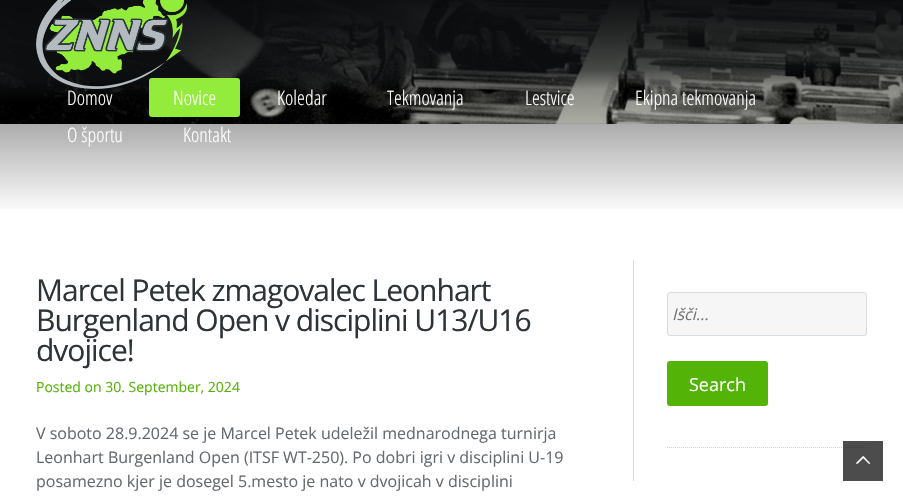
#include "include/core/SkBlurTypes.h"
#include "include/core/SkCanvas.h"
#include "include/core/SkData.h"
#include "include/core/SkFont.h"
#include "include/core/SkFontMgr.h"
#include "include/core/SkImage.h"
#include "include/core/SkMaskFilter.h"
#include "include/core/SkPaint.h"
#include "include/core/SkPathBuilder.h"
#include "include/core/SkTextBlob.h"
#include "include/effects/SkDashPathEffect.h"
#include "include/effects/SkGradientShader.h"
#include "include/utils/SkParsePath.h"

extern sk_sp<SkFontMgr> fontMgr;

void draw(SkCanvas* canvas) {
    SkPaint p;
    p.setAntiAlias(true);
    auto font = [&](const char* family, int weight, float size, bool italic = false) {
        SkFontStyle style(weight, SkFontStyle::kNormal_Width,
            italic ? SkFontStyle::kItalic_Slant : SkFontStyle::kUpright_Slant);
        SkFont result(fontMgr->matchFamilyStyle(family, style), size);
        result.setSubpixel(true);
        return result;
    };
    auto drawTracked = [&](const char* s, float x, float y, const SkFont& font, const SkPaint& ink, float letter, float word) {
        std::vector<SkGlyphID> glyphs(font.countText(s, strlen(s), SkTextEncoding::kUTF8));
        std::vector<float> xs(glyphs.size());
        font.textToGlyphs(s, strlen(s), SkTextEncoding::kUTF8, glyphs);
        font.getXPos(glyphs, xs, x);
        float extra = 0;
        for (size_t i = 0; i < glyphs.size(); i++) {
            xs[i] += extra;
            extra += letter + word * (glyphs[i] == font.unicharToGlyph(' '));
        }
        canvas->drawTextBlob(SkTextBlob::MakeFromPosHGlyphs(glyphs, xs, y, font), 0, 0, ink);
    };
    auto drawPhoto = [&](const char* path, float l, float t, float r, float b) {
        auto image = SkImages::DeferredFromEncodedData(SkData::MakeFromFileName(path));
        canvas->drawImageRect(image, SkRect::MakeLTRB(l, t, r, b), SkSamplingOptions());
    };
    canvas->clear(0xFFFFFFFF);
    drawPhoto("media/1.png", 0, 0, 903, 124);
    {
        const SkColor colors[] = {0xFF000000, 0x00000000};
        const float stops[] = {0, 1};
        const SkPoint ends[] = {{452, -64}, {452, 215}};
        p.setShader(SkGradientShader::MakeLinear(ends, colors, stops, 2, SkTileMode::kClamp));
        p.setAlpha(255);
    }
    canvas->drawRect(SkRect::MakeLTRB(0, 0, 903, 209), p);
    drawPhoto("media/2.png", 36, 0, 187, 89);
    auto font1 = font("Open Sans Condensed", 300, 20);
    p.setShader(nullptr);
    p.setColor(0xFFFFFFFF);
    canvas->drawString("Domov", 67, 105, font1, p);
    p.setColor(0xFF93EB3B);
    canvas->drawRoundRect(SkRect::MakeLTRB(149, 78, 240, 117), 3, 3, p);
    p.setColor(0xFFFFFFFF);
    {
        const struct { const char* s; float x, y; } items[] = {
            {"Novice", 173, 105},
            {"Koledar", 277, 105},
            {"Tekmovanja", 387, 105},
            {"Lestvice", 525, 105},
            {"Ekipna tekmovanja", 635, 105},
            {"O športu", 67, 142},
            {"Kontakt", 183, 142},
        };
        for (auto [s, x, y] : items) {
            canvas->drawString(s, x, y, font1, p);
        }
    }
    auto font2 = font("Open Sans", 400, 30);
    p.setColor(0xFF2D3438);
    {
        const struct { const char* s; float x, y; } items[] = {
            {"Marcel Petek zmagovalec Leonhart", 36, 301},
            {"Burgenland Open v disciplini U13/U16", 36, 331},
            {"dvojice!", 36, 361},
        };
        for (auto [s, x, y] : items) {
            drawTracked(s, x, y, font2, p, -1, 0);
        }
    }
    auto font3 = font("Open Sans", 400, 14);
    p.setColor(0xFF54B307);
    canvas->drawString("Posted on 30. September, 2024", 36, 392, font3, p);
    auto font4 = font("Open Sans", 400, 16);
    p.setColor(0xFF656A6F);
    {
        const struct { const char* s; float x, y; } items[] = {
            {"V soboto 28.9.2024 se je Marcel Petek udeležil mednarodnega turnirja", 36, 439},
            {"Leonhart Burgenland Open (ITSF WT-250). Po dobri igri v disciplini U-19", 36, 463},
            {"posamezno kjer je dosegel 5.mesto je nato v dvojicah v disciplini", 36, 487},
        };
        for (auto [s, x, y] : items) {
            canvas->drawString(s, x, y, font4, p);
        }
    }
    p.setColor(0xFFD6DCE0);
    canvas->drawRect(SkRect::MakeLTRB(633, 260, 634, 481), p);
    p.setColor(0xFFF6F6F6);
    canvas->drawRoundRect(SkRect::MakeLTRB(667.5f, 292.5f, 866.5f, 335.5f), 2.5f, 2.5f, p);
    p.setStyle(SkPaint::kStroke_Style);
    p.setStrokeWidth(1);
    p.setColor(0xFFD6DCE0);
    canvas->drawRoundRect(SkRect::MakeLTRB(667.5f, 292.5f, 866.5f, 335.5f), 2.5f, 2.5f, p);
    auto font5 = font("Open Sans", 400, 16, true);
    p.setStyle(SkPaint::kFill_Style);
    p.setColor(0xFF757575);
    canvas->drawString("Išči...", 672, 320, font5, p);
    p.setColor(0xFF54B307);
    canvas->drawRoundRect(SkRect::MakeLTRB(667, 361, 768, 406), 3, 3, p);
    auto font6 = font("Open Sans", 400, 18);
    p.setColor(0xFFFFFFFF);
    canvas->drawString("Search", 689, 391, font6, p);
    p.setStyle(SkPaint::kStroke_Style);
    p.setColor(0xFFCAD2D7);
    p.setPathEffect(SkDashPathEffect::Make({{1, 1}}, 0));
    canvas->drawPath(SkPathBuilder().moveTo(667, 447.5f).lineTo(867, 447.5f).detach(), p);
    p.setPathEffect(nullptr);
    p.setStyle(SkPaint::kFill_Style);
    p.setColor(0xB3000000);
    canvas->drawRect(SkRect::MakeLTRB(843, 441, 883, 481), p);
    drawPhoto("media/3.png", 856, 455, 871, 465);
}
